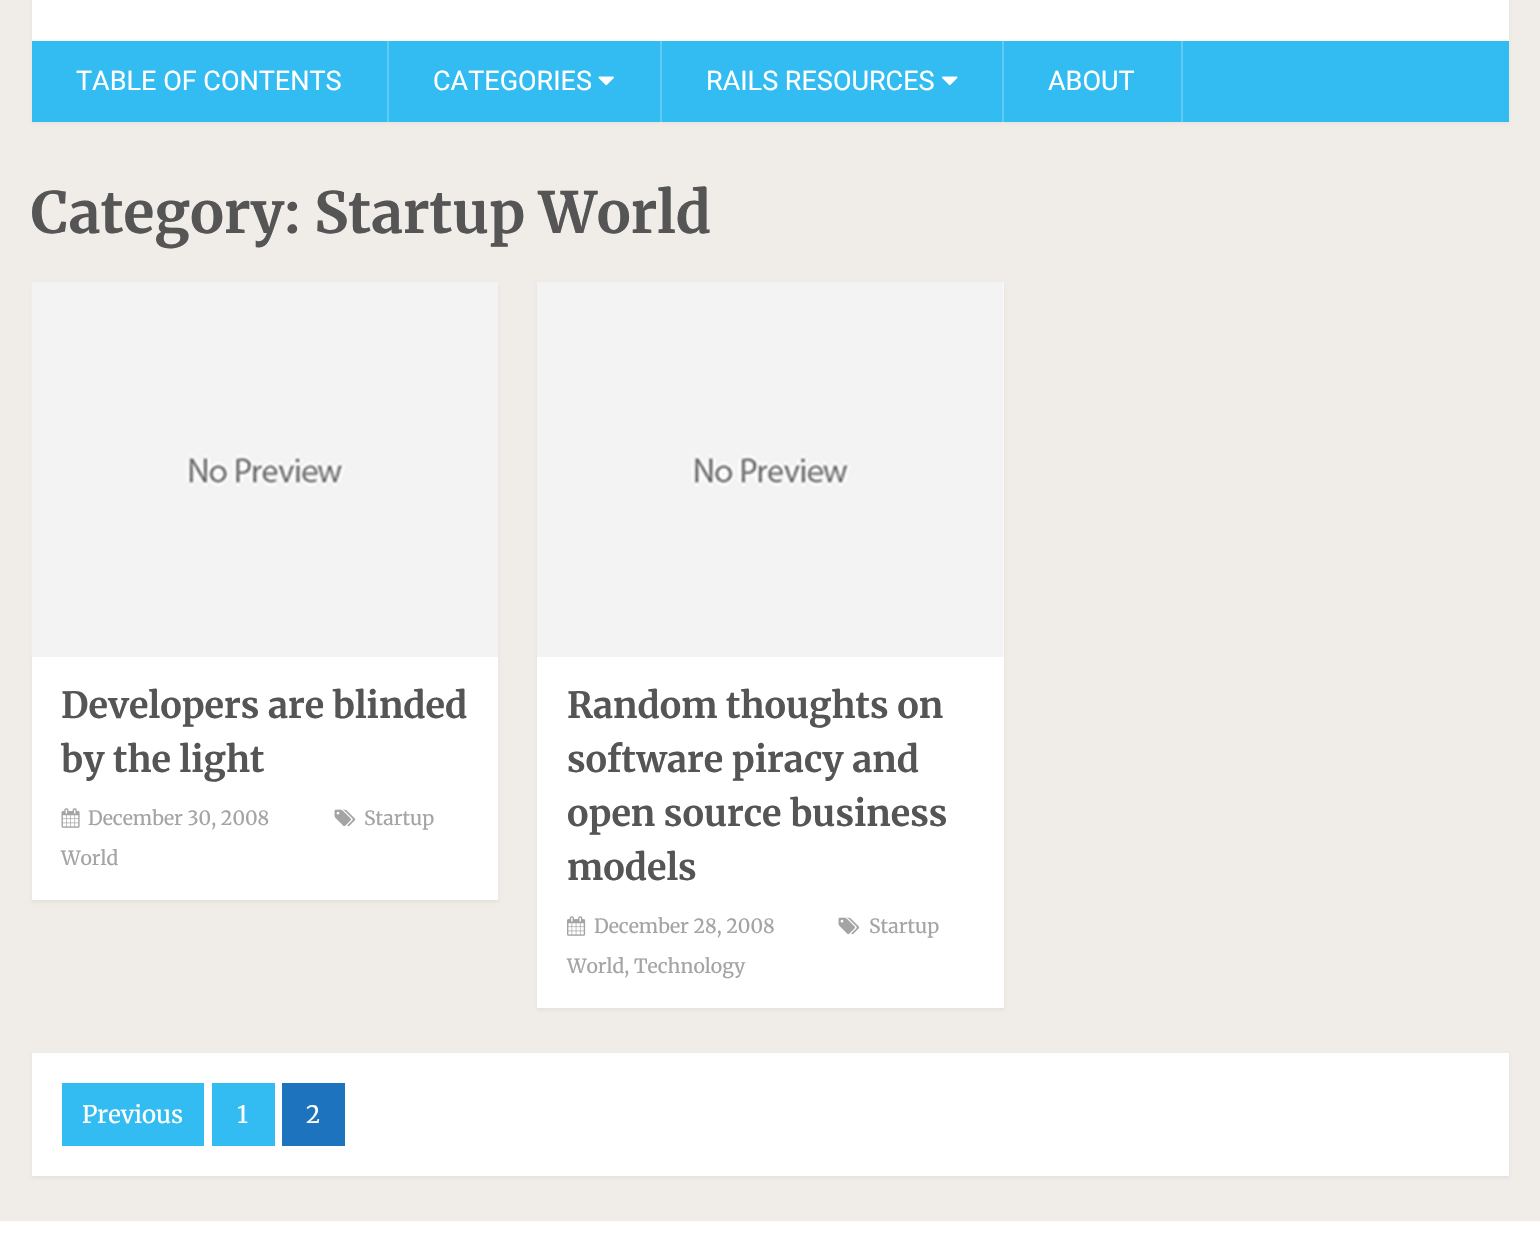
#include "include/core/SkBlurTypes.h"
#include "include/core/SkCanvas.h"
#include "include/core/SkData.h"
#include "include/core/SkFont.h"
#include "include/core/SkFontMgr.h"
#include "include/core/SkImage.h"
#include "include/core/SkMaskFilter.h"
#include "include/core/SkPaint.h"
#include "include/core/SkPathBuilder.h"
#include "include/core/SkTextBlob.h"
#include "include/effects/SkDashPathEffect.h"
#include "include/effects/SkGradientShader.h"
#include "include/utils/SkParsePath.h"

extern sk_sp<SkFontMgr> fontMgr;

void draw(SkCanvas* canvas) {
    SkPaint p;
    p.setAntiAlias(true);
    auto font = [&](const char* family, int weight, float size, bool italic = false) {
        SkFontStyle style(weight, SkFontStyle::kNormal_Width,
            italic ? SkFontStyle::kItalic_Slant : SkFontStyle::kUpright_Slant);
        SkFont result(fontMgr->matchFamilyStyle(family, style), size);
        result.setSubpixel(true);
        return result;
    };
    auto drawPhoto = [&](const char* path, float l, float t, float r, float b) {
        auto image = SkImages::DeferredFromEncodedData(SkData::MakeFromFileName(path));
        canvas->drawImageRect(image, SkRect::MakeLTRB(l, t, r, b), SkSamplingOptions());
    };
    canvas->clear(0xFFF0EDE9);
    p.setColor(0x0D000000);
    p.setMaskFilter(SkMaskFilter::MakeBlur(kNormal_SkBlurStyle, 1.5f));
    canvas->drawRect(SkRect::MakeLTRB(32, -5, 1509, 123), p);
    p.setMaskFilter(nullptr);
    {
        const struct { float l, t, r, b; SkColor color; } items[] = {
            {32, 0, 1509, 41, 0xFFFFFFFF},
            {32, 41, 1509, 122, 0xFF33BCF2},
            {387, 41, 389, 122, 0xFF60CBF5},
        };
        for (auto [l, t, r, b, color] : items) {
            p.setColor(color);
            canvas->drawRect(SkRect::MakeLTRB(l, t, r, b), p);
        }
    }
    auto font1 = font("Roboto", 400, 27);
    p.setColor(0xFFFFFFFF);
    canvas->drawString("TABLE OF CONTENTS", 76, 90, font1, p);
    p.setColor(0xFF60CBF5);
    canvas->drawRect(SkRect::MakeLTRB(660, 41, 662, 122), p);
    p.setColor(0xFFFFFFFF);
    canvas->drawString("CATEGORIES", 433, 90, font1, p);
    drawPhoto("media/1.png", 598, 76, 614, 86);
    p.setColor(0xFF60CBF5);
    canvas->drawRect(SkRect::MakeLTRB(1002, 41, 1004, 122), p);
    p.setColor(0xFFFFFFFF);
    canvas->drawString("RAILS RESOURCES", 706, 90, font1, p);
    drawPhoto("media/2.png", 942, 76, 958, 86);
    p.setColor(0xFF60CBF5);
    canvas->drawRect(SkRect::MakeLTRB(1181, 41, 1183, 122), p);
    p.setColor(0xFFFFFFFF);
    canvas->drawString("ABOUT", 1048, 90, font1, p);
    auto font2 = font("Merriweather", 700, 57);
    p.setColor(0xFF555555);
    canvas->drawString("Category: Startup World", 31, 233, font2, p);
    p.setColor(0x0D000000);
    p.setMaskFilter(SkMaskFilter::MakeBlur(kNormal_SkBlurStyle, 1.5f));
    canvas->drawRect(SkRect::MakeLTRB(32, 284, 498, 902), p);
    p.setMaskFilter(nullptr);
    p.setColor(0xFFFFFFFF);
    canvas->drawRect(SkRect::MakeLTRB(32, 657, 498, 900), p);
    drawPhoto("media/3.png", 31, 282, 498, 657);
    auto font3 = font("Merriweather", 700, 36);
    p.setColor(0xFF555555);
    canvas->drawString("Developers are blinded", 61, 718, font3, p);
    canvas->drawString("by the light", 61, 772, font3, p);
    drawPhoto("media/4.png", 61, 808, 80, 828);
    auto font4 = font("Merriweather", 400, 19.5f);
    p.setColor(0xFFA4A4A4);
    canvas->drawString("December 30, 2008", 88, 825, font4, p);
    drawPhoto("media/5.png", 334, 809, 356, 827);
    canvas->drawString("Startup", 364, 825, font4, p);
    canvas->drawString("World", 61, 865, font4, p);
    p.setColor(0x0D000000);
    p.setMaskFilter(SkMaskFilter::MakeBlur(kNormal_SkBlurStyle, 1.5f));
    canvas->drawRect(SkRect::MakeLTRB(537, 284, 1004, 1010), p);
    p.setMaskFilter(nullptr);
    p.setColor(0xFFFFFFFF);
    canvas->drawRect(SkRect::MakeLTRB(537, 282, 1004, 1008), p);
    drawPhoto("media/6.png", 537, 282, 1004, 657);
    p.setColor(0xFF555555);
    {
        const struct { const char* s; float x, y; } items[] = {
            {"Random thoughts on", 567, 718},
            {"software piracy and", 567, 772},
            {"open source business", 567, 826},
            {"models", 567, 880},
        };
        for (auto [s, x, y] : items) {
            canvas->drawString(s, x, y, font3, p);
        }
    }
    drawPhoto("media/7.png", 567, 916, 586, 936);
    p.setColor(0xFFA4A4A4);
    canvas->drawString("December 28, 2008", 594, 933, font4, p);
    drawPhoto("media/5.png", 838, 917, 860, 935);
    canvas->drawString("Startup", 869, 933, font4, p);
    canvas->drawString("World, Technology", 567, 973, font4, p);
    p.setColor(0x0D000000);
    p.setMaskFilter(SkMaskFilter::MakeBlur(kNormal_SkBlurStyle, 1.5f));
    canvas->drawRect(SkRect::MakeLTRB(32, 1055, 1509, 1178), p);
    p.setMaskFilter(nullptr);
    p.setColor(0xFFFFFFFF);
    canvas->drawRect(SkRect::MakeLTRB(32, 1053, 1509, 1176), p);
    p.setColor(0xFF33BCF2);
    canvas->drawRect(SkRect::MakeLTRB(62, 1083, 204, 1146), p);
    auto font5 = font("Merriweather", 400, 24);
    p.setColor(0xFFFFFFFF);
    canvas->drawString("Previous", 82, 1123, font5, p);
    p.setColor(0xFF33BCF2);
    canvas->drawRect(SkRect::MakeLTRB(212, 1083, 275, 1146), p);
    p.setColor(0xFFFFFFFF);
    canvas->drawString("1", 237, 1123, font5, p);
    p.setColor(0xFF1E73BE);
    canvas->drawRect(SkRect::MakeLTRB(282, 1083, 345, 1146), p);
    p.setColor(0xFFFFFFFF);
    canvas->drawString("2", 306, 1123, font5, p);
    canvas->drawRect(SkRect::MakeLTRB(0, 1221, 1540, 1242), p);
}
